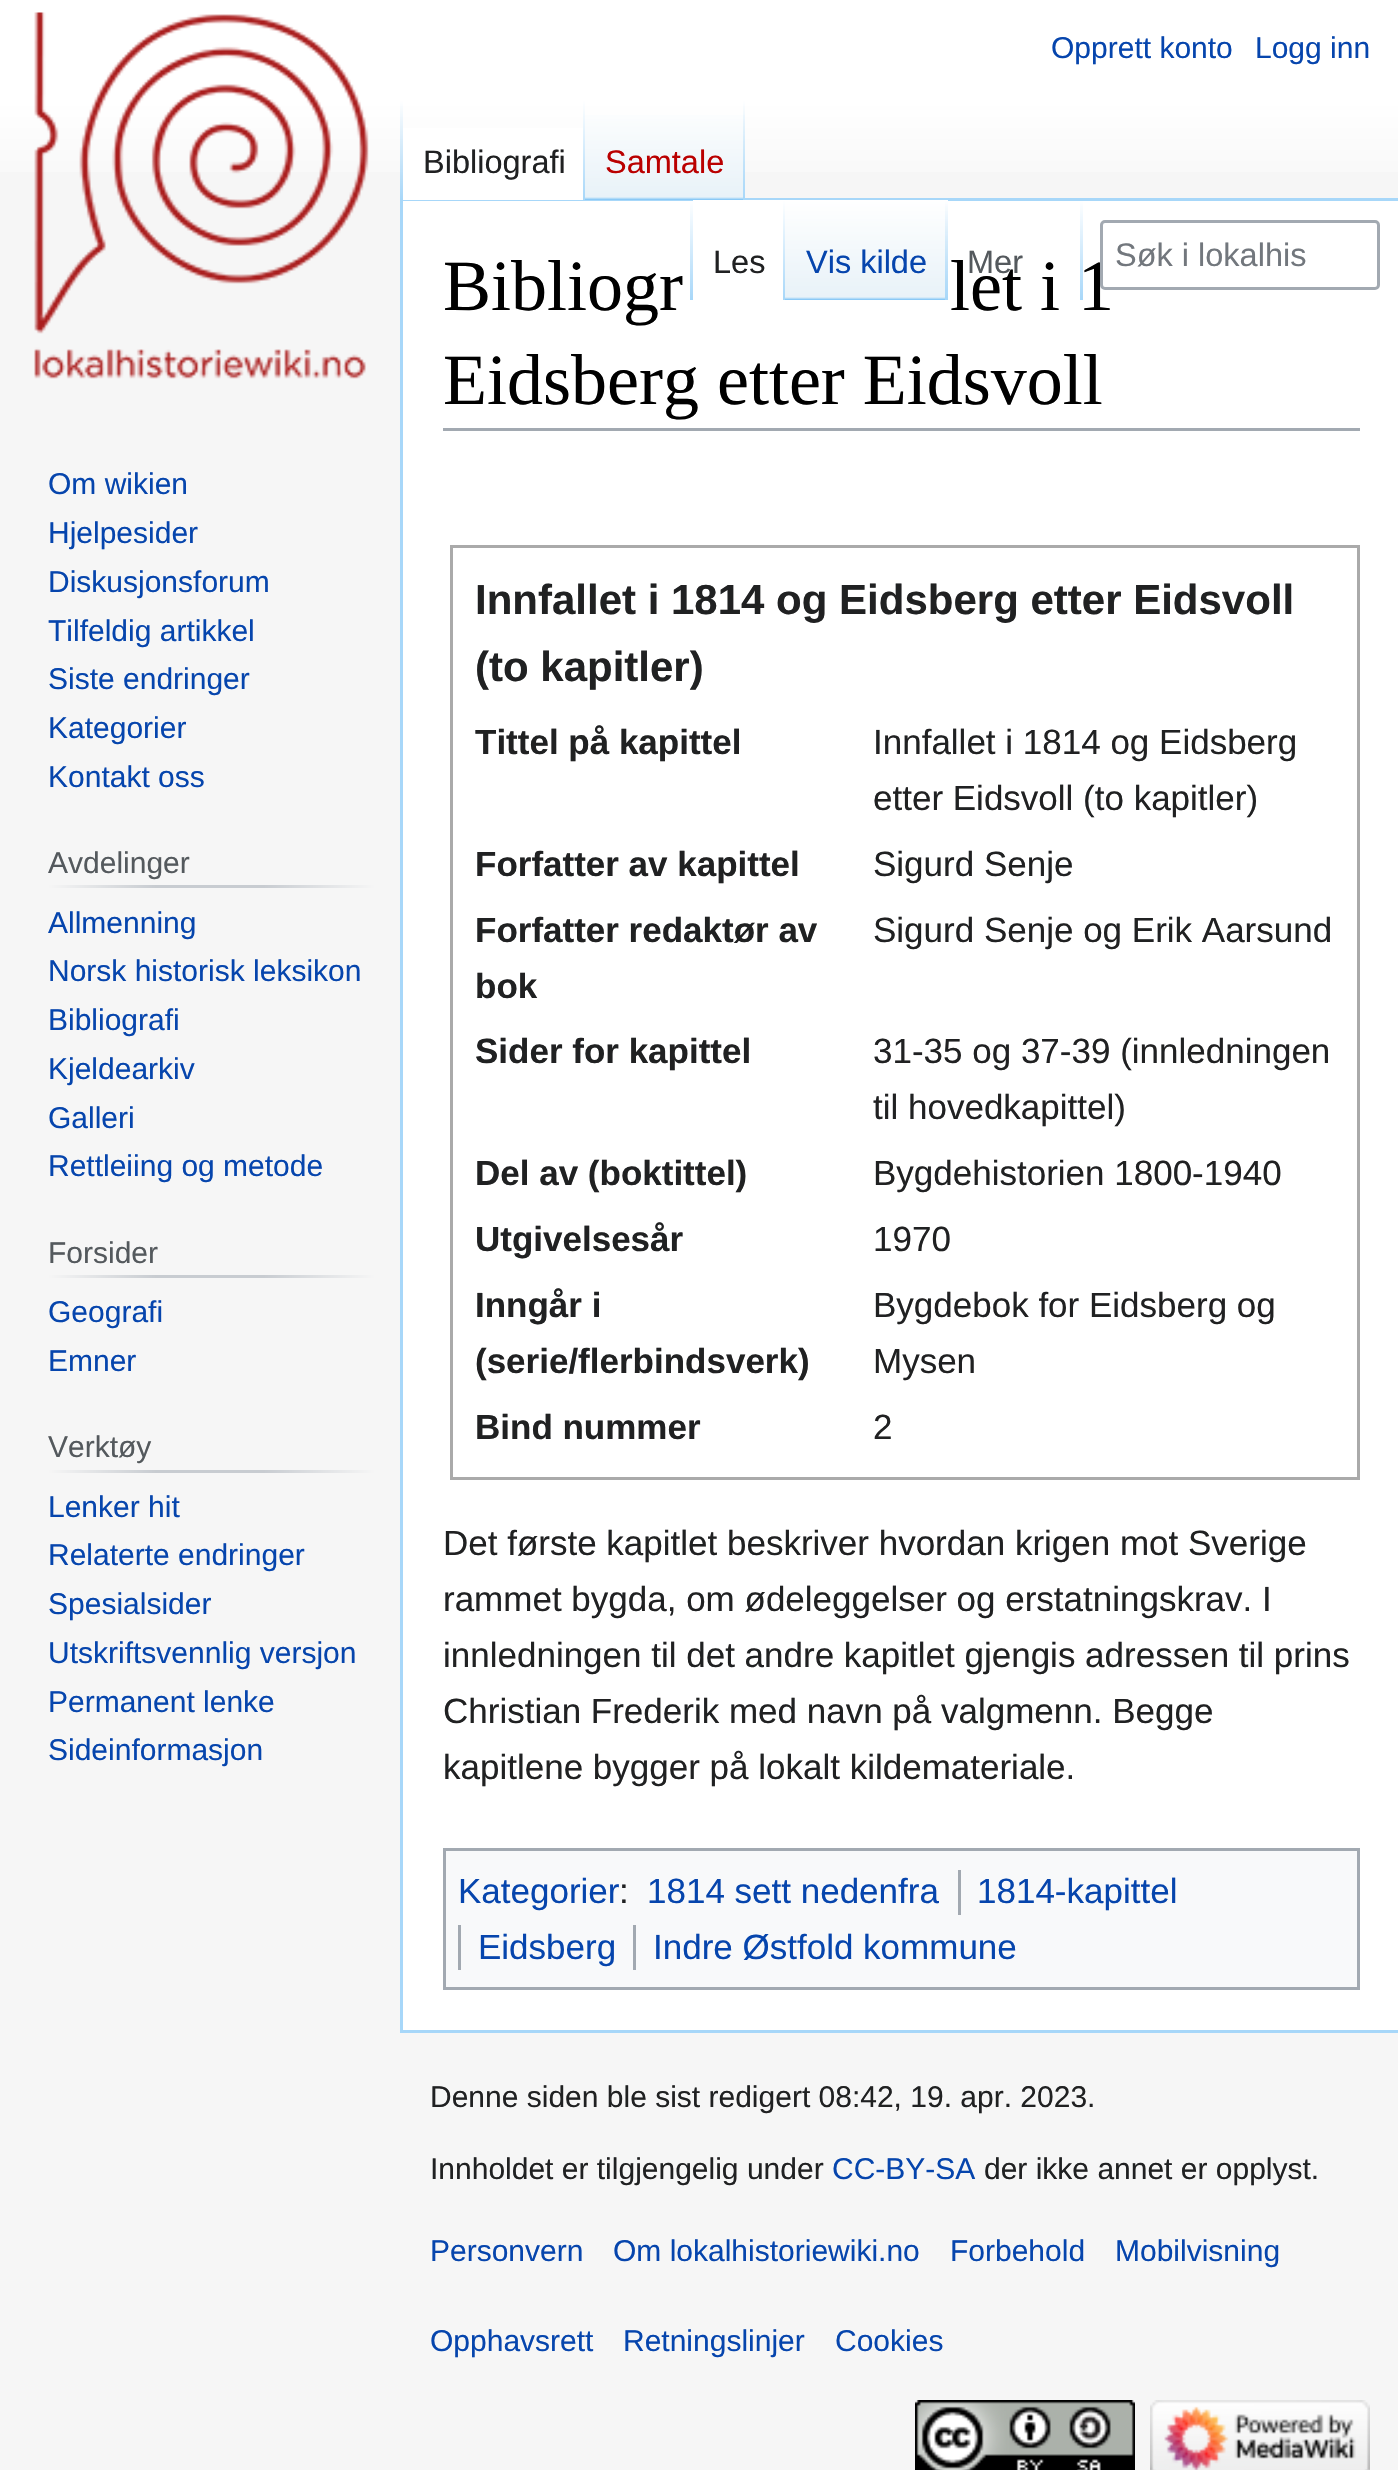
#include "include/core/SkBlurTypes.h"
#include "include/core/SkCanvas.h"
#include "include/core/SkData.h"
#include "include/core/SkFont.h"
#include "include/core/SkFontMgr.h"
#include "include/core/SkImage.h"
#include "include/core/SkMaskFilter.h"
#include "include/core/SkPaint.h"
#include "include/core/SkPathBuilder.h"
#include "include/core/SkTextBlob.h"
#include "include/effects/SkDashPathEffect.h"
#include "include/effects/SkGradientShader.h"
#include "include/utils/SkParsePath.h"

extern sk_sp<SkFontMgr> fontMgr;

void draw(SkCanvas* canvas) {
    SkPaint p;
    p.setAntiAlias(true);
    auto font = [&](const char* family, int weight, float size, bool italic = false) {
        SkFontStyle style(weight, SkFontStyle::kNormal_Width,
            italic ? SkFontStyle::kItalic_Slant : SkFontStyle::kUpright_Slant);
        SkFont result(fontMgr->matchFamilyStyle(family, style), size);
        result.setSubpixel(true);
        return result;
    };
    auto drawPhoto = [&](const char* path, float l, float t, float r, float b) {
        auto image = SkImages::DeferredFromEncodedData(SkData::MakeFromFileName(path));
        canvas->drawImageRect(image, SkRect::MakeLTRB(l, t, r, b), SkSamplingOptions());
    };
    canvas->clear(0xFFF6F6F6);
    {
        const SkColor colors[] = {0xFFFFFFFF, 0xFFF6F6F6};
        const float stops[] = {0.5f, 1};
        const SkPoint ends[] = {{700, 0}, {700, 200}};
        p.setShader(SkGradientShader::MakeLinear(ends, colors, stops, 2, SkTileMode::kClamp));
        p.setAlpha(255);
    }
    canvas->drawRect(SkRect::MakeLTRB(0, 0, 1398, 172), p);
    auto font1 = font("Liberation Sans", 400, 30);
    p.setShader(nullptr);
    p.setColor(0xFF0645AD);
    canvas->drawString("Opprett konto", 1051, 58, font1, p);
    canvas->drawString("Logg inn", 1255, 58, font1, p);
    {
        const struct { float l, t, r, b; SkColor color; } items[] = {
            {400, 198, 1398, 201, 0xFFA7D7F9},
            {400, 2030, 1398, 2033, 0xFFA7D7F9},
            {400, 198, 403, 2033, 0xFFA7D7F9},
        };
        for (auto [l, t, r, b, color] : items) {
            p.setColor(color);
            canvas->drawRect(SkRect::MakeLTRB(l, t, r, b), p);
        }
    }
    {
        const SkColor colors[] = {0x00A7D7F9, 0xFFA7D7F9};
        const float stops[] = {0, 1};
        const SkPoint ends[] = {{401, 100}, {401, 200}};
        p.setShader(SkGradientShader::MakeLinear(ends, colors, stops, 2, SkTileMode::kClamp));
        p.setAlpha(255);
    }
    canvas->drawRect(SkRect::MakeLTRB(400, 100, 403, 200), p);
    p.setShader(nullptr);
    p.setColor(0xFFFFFFFF);
    canvas->drawRect(SkRect::MakeLTRB(403, 128, 583, 200), p);
    {
        const SkColor colors[] = {0xFFFFFFFF, 0xFFA7D7F9};
        const float stops[] = {0, 1};
        const SkPoint ends[] = {{584, 100}, {584, 200}};
        p.setShader(SkGradientShader::MakeLinear(ends, colors, stops, 2, SkTileMode::kClamp));
        p.setAlpha(255);
    }
    canvas->drawRect(SkRect::MakeLTRB(583, 100, 585, 200), p);
    auto font2 = font("Liberation Sans", 400, 32.5f);
    p.setShader(nullptr);
    p.setColor(0xFF202122);
    canvas->drawString("Bibliografi", 423, 173, font2, p);
    {
        const SkColor colors[] = {0xFF77C1F6, 0xFFE8F2F8, 0xFFFFFFFF};
        const float stops[] = {0, 0.03f, 1};
        const SkPoint ends[] = {{665, 200}, {665, 100}};
        p.setShader(SkGradientShader::MakeLinear(ends, colors, stops, 3, SkTileMode::kClamp));
        p.setAlpha(255);
    }
    canvas->drawRect(SkRect::MakeLTRB(585, 115, 745, 200), p);
    {
        const SkColor colors[] = {0x00A7D7F9, 0xFFA7D7F9};
        const float stops[] = {0, 1};
        const SkPoint ends[] = {{744, 100}, {744, 200}};
        p.setShader(SkGradientShader::MakeLinear(ends, colors, stops, 2, SkTileMode::kClamp));
        p.setAlpha(255);
    }
    canvas->drawRect(SkRect::MakeLTRB(743, 100, 745, 200), p);
    p.setShader(nullptr);
    p.setColor(0xFFBA0000);
    canvas->drawString("Samtale", 605, 173, font2, p);
    p.setColor(0xFFFFFFFF);
    canvas->drawRect(SkRect::MakeLTRB(403, 201, 1398, 2030), p);
    {
        const SkColor colors[] = {0x00A7D7F9, 0xFFA7D7F9};
        const float stops[] = {0, 1};
        const SkPoint ends[] = {{691, 200}, {691, 300}};
        p.setShader(SkGradientShader::MakeLinear(ends, colors, stops, 2, SkTileMode::kClamp));
        p.setAlpha(255);
    }
    canvas->drawRect(SkRect::MakeLTRB(690, 200, 693, 300), p);
    p.setShader(nullptr);
    p.setColor(0xFFFFFFFF);
    canvas->drawRect(SkRect::MakeLTRB(693, 200, 783, 201), p);
    {
        const SkColor colors[] = {0xFFFFFFFF, 0xFFA7D7F9};
        const float stops[] = {0, 1};
        const SkPoint ends[] = {{784, 200}, {784, 300}};
        p.setShader(SkGradientShader::MakeLinear(ends, colors, stops, 2, SkTileMode::kClamp));
        p.setAlpha(255);
    }
    canvas->drawRect(SkRect::MakeLTRB(783, 200, 785, 300), p);
    p.setShader(nullptr);
    p.setColor(0xFF202122);
    canvas->drawString("Les", 713, 273, font2, p);
    {
        const SkColor colors[] = {0xFF77C1F6, 0xFFE8F2F8, 0xFFFFFFFF};
        const float stops[] = {0, 0.03f, 1};
        const SkPoint ends[] = {{866, 300}, {866, 200}};
        p.setShader(SkGradientShader::MakeLinear(ends, colors, stops, 3, SkTileMode::kClamp));
        p.setAlpha(255);
    }
    canvas->drawRect(SkRect::MakeLTRB(785, 200, 948, 300), p);
    {
        const SkColor colors[] = {0x00A7D7F9, 0xFFA7D7F9};
        const float stops[] = {0, 1};
        const SkPoint ends[] = {{946, 200}, {946, 300}};
        p.setShader(SkGradientShader::MakeLinear(ends, colors, stops, 2, SkTileMode::kClamp));
        p.setAlpha(255);
    }
    canvas->drawRect(SkRect::MakeLTRB(945, 200, 948, 300), p);
    p.setShader(nullptr);
    p.setColor(0xFF0645AD);
    canvas->drawString("Vis kilde", 806, 273, font2, p);
    auto font3 = font("Liberation Serif", 400, 72);
    p.setColor(0xFF000000);
    canvas->drawString("let i 1", 950, 310, font3, p);
    {
        const SkColor colors[] = {0x00A7D7F9, 0xFFA7D7F9};
        const float stops[] = {0, 1};
        const SkPoint ends[] = {{1081, 200}, {1081, 300}};
        p.setShader(SkGradientShader::MakeLinear(ends, colors, stops, 2, SkTileMode::kClamp));
        p.setAlpha(255);
    }
    canvas->drawRect(SkRect::MakeLTRB(1080, 200, 1083, 300), p);
    p.setShader(nullptr);
    p.setColor(0xFF54595D);
    canvas->drawString("Mer", 967, 273, font2, p);
    p.setColor(0x80FFFFFF);
    canvas->drawRoundRect(SkRect::MakeLTRB(1101.5f, 221.5f, 1378.5f, 288.5f), 3.5f, 3.5f, p);
    p.setStyle(SkPaint::kStroke_Style);
    p.setStrokeWidth(3);
    p.setColor(0xFFA2A9B1);
    canvas->drawRoundRect(SkRect::MakeLTRB(1101.5f, 221.5f, 1378.5f, 288.5f), 3.5f, 3.5f, p);
    p.setStyle(SkPaint::kFill_Style);
    p.setColor(0xFF72777D);
    canvas->drawString("Søk i lokalhis", 1115, 266, font2, p);
    drawPhoto("media/1.png", 34, 12, 369, 379);
    p.setColor(0xFF0645AD);
    {
        const struct { const char* s; float x, y; } items[] = {
            {"Om wikien", 48, 494},
            {"Hjelpesider", 48, 543},
            {"Diskusjonsforum", 48, 592},
            {"Tilfeldig artikkel", 48, 641},
            {"Siste endringer", 48, 689},
            {"Kategorier", 48, 738},
            {"Kontakt oss", 48, 787},
        };
        for (auto [s, x, y] : items) {
            canvas->drawString(s, x, y, font1, p);
        }
    }
    {
        const SkColor colors[] = {0xFFF6F6F6, 0xFFC8CCD1, 0xFFC8CCD1, 0xFFF6F6F6};
        const float stops[] = {0, 0.33f, 0.66f, 1};
        const SkPoint ends[] = {{48, 886}, {375, 886}};
        p.setShader(SkGradientShader::MakeLinear(ends, colors, stops, 4, SkTileMode::kClamp));
        p.setAlpha(255);
    }
    canvas->drawRect(SkRect::MakeLTRB(48, 885, 375, 888), p);
    p.setShader(nullptr);
    p.setColor(0xFF54595D);
    canvas->drawString("Avdelinger", 48, 873, font1, p);
    p.setColor(0xFF0645AD);
    {
        const struct { const char* s; float x, y; } items[] = {
            {"Allmenning", 48, 933},
            {"Norsk historisk leksikon", 48, 981},
            {"Bibliografi", 48, 1030},
            {"Kjeldearkiv", 48, 1079},
            {"Galleri", 48, 1128},
            {"Rettleiing og metode", 48, 1176},
        };
        for (auto [s, x, y] : items) {
            canvas->drawString(s, x, y, font1, p);
        }
    }
    {
        const SkColor colors[] = {0xFFF6F6F6, 0xFFC8CCD1, 0xFFC8CCD1, 0xFFF6F6F6};
        const float stops[] = {0, 0.33f, 0.66f, 1};
        const SkPoint ends[] = {{48, 1276}, {375, 1276}};
        p.setShader(SkGradientShader::MakeLinear(ends, colors, stops, 4, SkTileMode::kClamp));
        p.setAlpha(255);
    }
    canvas->drawRect(SkRect::MakeLTRB(48, 1275, 375, 1278), p);
    p.setShader(nullptr);
    p.setColor(0xFF54595D);
    canvas->drawString("Forsider", 48, 1263, font1, p);
    p.setColor(0xFF0645AD);
    canvas->drawString("Geografi", 48, 1322, font1, p);
    canvas->drawString("Emner", 48, 1371, font1, p);
    {
        const SkColor colors[] = {0xFFF6F6F6, 0xFFC8CCD1, 0xFFC8CCD1, 0xFFF6F6F6};
        const float stops[] = {0, 0.33f, 0.66f, 1};
        const SkPoint ends[] = {{48, 1471}, {375, 1471}};
        p.setShader(SkGradientShader::MakeLinear(ends, colors, stops, 4, SkTileMode::kClamp));
        p.setAlpha(255);
    }
    canvas->drawRect(SkRect::MakeLTRB(48, 1470, 375, 1473), p);
    p.setShader(nullptr);
    p.setColor(0xFF54595D);
    canvas->drawString("Verktøy", 48, 1457, font1, p);
    p.setColor(0xFF0645AD);
    {
        const struct { const char* s; float x, y; } items[] = {
            {"Lenker hit", 48, 1517},
            {"Relaterte endringer", 48, 1565},
            {"Spesialsider", 48, 1614},
            {"Utskriftsvennlig versjon", 48, 1663},
            {"Permanent lenke", 48, 1712},
            {"Sideinformasjon", 48, 1760},
        };
        for (auto [s, x, y] : items) {
            canvas->drawString(s, x, y, font1, p);
        }
    }
    p.setColor(0xFFA2A9B1);
    canvas->drawRect(SkRect::MakeLTRB(443, 428, 1360, 431), p);
    p.setColor(0xFF000000);
    canvas->drawString("Bibliogr", 443, 310, font3, p);
    canvas->drawString("Eidsberg etter Eidsvoll", 443, 404, font3, p);
    p.setStyle(SkPaint::kStroke_Style);
    p.setColor(0xFFAAAAAA);
    canvas->drawRect(SkRect::MakeLTRB(451.5f, 546.5f, 1358.5f, 1478.5f), p);
    auto font4 = font("Liberation Sans", 700, 42);
    p.setStyle(SkPaint::kFill_Style);
    p.setColor(0xFF202122);
    canvas->drawString("Innfallet i 1814 og Eidsberg etter Eidsvoll", 475, 614, font4, p);
    canvas->drawString("(to kapitler)", 475, 681, font4, p);
    auto font5 = font("Liberation Sans", 700, 35);
    canvas->drawString("Tittel på kapittel", 475, 754, font5, p);
    auto font6 = font("Liberation Sans", 400, 35);
    canvas->drawString("Innfallet i 1814 og Eidsberg", 873, 754, font6, p);
    canvas->drawString("etter Eidsvoll (to kapitler)", 873, 810, font6, p);
    canvas->drawString("Forfatter av kapittel", 475, 876, font5, p);
    canvas->drawString("Sigurd Senje", 873, 876, font6, p);
    canvas->drawString("Forfatter redaktør av", 475, 942, font5, p);
    canvas->drawString("bok", 475, 998, font5, p);
    canvas->drawString("Sigurd Senje og Erik Aarsund", 873, 942, font6, p);
    canvas->drawString("Sider for kapittel", 475, 1063, font5, p);
    canvas->drawString("31-35 og 37-39 (innledningen", 873, 1063, font6, p);
    canvas->drawString("til hovedkapittel)", 873, 1119, font6, p);
    canvas->drawString("Del av (boktittel)", 475, 1185, font5, p);
    canvas->drawString("Bygdehistorien 1800-1940", 873, 1185, font6, p);
    canvas->drawString("Utgivelsesår", 475, 1251, font5, p);
    canvas->drawString("1970", 873, 1251, font6, p);
    canvas->drawString("Inngår i", 475, 1317, font5, p);
    canvas->drawString("(serie/flerbindsverk)", 475, 1373, font5, p);
    canvas->drawString("Bygdebok for Eidsberg og", 873, 1317, font6, p);
    canvas->drawString("Mysen", 873, 1373, font6, p);
    canvas->drawString("Bind nummer", 475, 1439, font5, p);
    {
        const struct { const char* s; float x, y; } items[] = {
            {"2", 873, 1439},
            {"Det første kapitlet beskriver hvordan krigen mot Sverige", 443, 1555},
            {"rammet bygda, om ødeleggelser og erstatningskrav. I", 443, 1611},
            {"innledningen til det andre kapitlet gjengis adressen til prins", 443, 1667},
            {"Christian Frederik med navn på valgmenn. Begge", 443, 1723},
            {"kapitlene bygger på lokalt kildemateriale.", 443, 1779},
        };
        for (auto [s, x, y] : items) {
            canvas->drawString(s, x, y, font6, p);
        }
    }
    p.setColor(0xFFF8F9FA);
    canvas->drawRect(SkRect::MakeLTRB(444.5f, 1849.5f, 1358.5f, 1988.5f), p);
    p.setStyle(SkPaint::kStroke_Style);
    p.setColor(0xFFA2A9B1);
    canvas->drawRect(SkRect::MakeLTRB(444.5f, 1849.5f, 1358.5f, 1988.5f), p);
    p.setStyle(SkPaint::kFill_Style);
    p.setColor(0xFF0645AD);
    canvas->drawString("Kategorier", 458, 1903, font6, p);
    canvas->drawString("1814 sett nedenfra", 647, 1903, font6, p);
    p.setColor(0xFFA2A9B1);
    canvas->drawRect(SkRect::MakeLTRB(958, 1870, 961, 1915), p);
    p.setColor(0xFF0645AD);
    canvas->drawString("1814-kapittel", 977, 1903, font6, p);
    p.setColor(0xFFA2A9B1);
    canvas->drawRect(SkRect::MakeLTRB(458, 1925, 461, 1970), p);
    p.setColor(0xFF0645AD);
    canvas->drawString("Eidsberg", 478, 1959, font6, p);
    p.setColor(0xFFA2A9B1);
    canvas->drawRect(SkRect::MakeLTRB(633, 1925, 636, 1970), p);
    p.setColor(0xFF0645AD);
    canvas->drawString("Indre Østfold kommune", 653, 1959, font6, p);
    p.setColor(0xFF202122);
    canvas->drawString(":", 619, 1903, font6, p);
    canvas->drawString("Denne siden ble sist redigert 08:42, 19. apr. 2023.", 430, 2107, font1, p);
    canvas->drawString("Innholdet er tilgjengelig under", 430, 2179, font1, p);
    p.setColor(0xFF0645AD);
    canvas->drawString("CC-BY-SA", 832, 2179, font1, p);
    p.setColor(0xFF202122);
    canvas->drawString("der ikke annet er opplyst.", 984, 2179, font1, p);
    p.setColor(0xFF0645AD);
    {
        const struct { const char* s; float x, y; } items[] = {
            {"Personvern", 430, 2261},
            {"Om lokalhistoriewiki.no", 613, 2261},
            {"Forbehold", 950, 2261},
            {"Mobilvisning", 1115, 2261},
            {"Opphavsrett", 430, 2351},
            {"Retningslinjer", 623, 2351},
            {"Cookies", 835, 2351},
        };
        for (auto [s, x, y] : items) {
            canvas->drawString(s, x, y, font1, p);
        }
    }
    drawPhoto("media/2.png", 915, 2400, 1135, 2470);
    drawPhoto("media/3.png", 1150, 2400, 1370, 2470);
}
